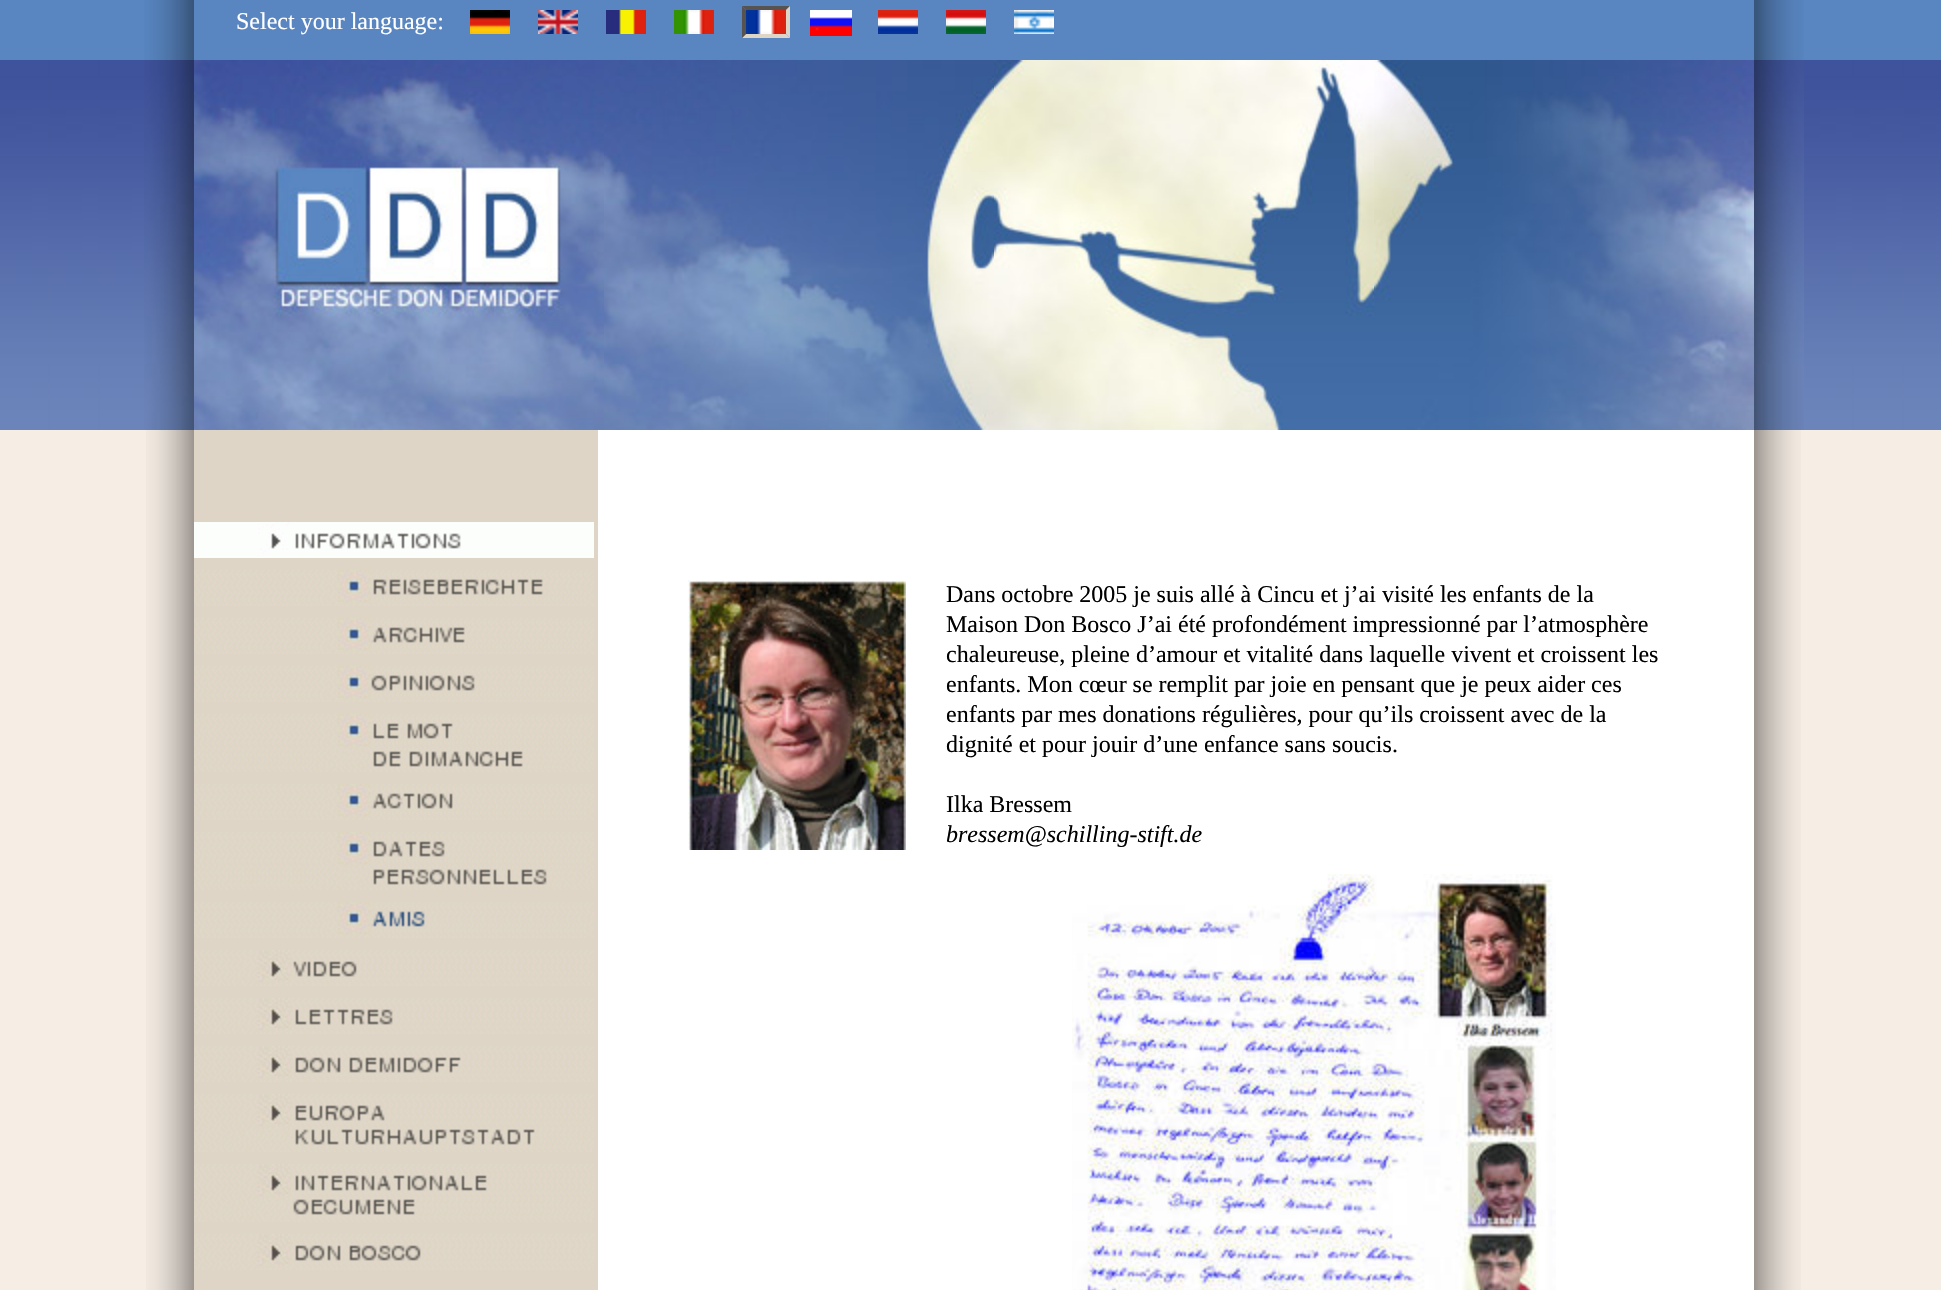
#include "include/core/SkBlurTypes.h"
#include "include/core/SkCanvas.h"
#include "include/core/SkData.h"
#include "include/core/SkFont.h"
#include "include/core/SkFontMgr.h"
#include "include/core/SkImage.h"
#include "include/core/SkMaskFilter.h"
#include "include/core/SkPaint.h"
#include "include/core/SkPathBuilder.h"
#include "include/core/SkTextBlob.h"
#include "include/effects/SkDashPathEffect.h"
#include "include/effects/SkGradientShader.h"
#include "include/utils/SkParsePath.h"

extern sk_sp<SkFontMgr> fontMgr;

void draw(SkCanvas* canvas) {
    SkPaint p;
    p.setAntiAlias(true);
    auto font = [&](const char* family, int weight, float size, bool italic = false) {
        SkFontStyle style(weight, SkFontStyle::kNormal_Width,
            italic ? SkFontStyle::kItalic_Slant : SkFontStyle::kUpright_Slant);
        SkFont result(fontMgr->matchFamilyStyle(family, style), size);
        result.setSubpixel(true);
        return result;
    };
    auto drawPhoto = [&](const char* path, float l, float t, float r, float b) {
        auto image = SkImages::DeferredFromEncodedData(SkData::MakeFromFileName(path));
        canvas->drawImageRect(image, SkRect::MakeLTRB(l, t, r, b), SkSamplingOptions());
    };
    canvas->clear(0xFFF6EDE4);
    p.setColor(0xFF5986C1);
    canvas->drawRect(SkRect::MakeLTRB(194, 0, 1754, 60), p);
    auto font1 = font("Liberation Serif", 400, 24);
    p.setColor(0xFFFFFFFF);
    canvas->drawString("Select your language:", 236, 29, font1, p);
    drawPhoto("media/1.png", 470, 10, 510, 34);
    drawPhoto("media/2.png", 538, 10, 578, 34);
    drawPhoto("media/3.png", 606, 10, 646, 34);
    drawPhoto("media/4.png", 674, 10, 714, 34);
    p.setColor(0xFF565350);
    canvas->drawPath(SkPathBuilder().moveTo(742, 6).lineTo(790, 6).lineTo(786, 10).lineTo(746, 10).close().detach(), p);
    p.setColor(0xFFDFD5C6);
    canvas->drawPath(SkPathBuilder().moveTo(790, 6).lineTo(790, 38).lineTo(786, 34).lineTo(786, 10).close().detach(), p);
    canvas->drawPath(SkPathBuilder().moveTo(790, 38).lineTo(742, 38).lineTo(746, 34).lineTo(786, 34).close().detach(), p);
    p.setColor(0xFF565350);
    canvas->drawPath(SkPathBuilder().moveTo(742, 38).lineTo(742, 6).lineTo(746, 10).lineTo(746, 34).close().detach(), p);
    drawPhoto("media/5.png", 746, 10, 786, 34);
    drawPhoto("media/6.png", 810, 10, 852, 36);
    drawPhoto("media/7.png", 878, 10, 918, 34);
    drawPhoto("media/8.png", 946, 10, 986, 34);
    drawPhoto("media/9.png", 1014, 10, 1054, 34);
    p.setColor(0xFF5986C1);
    canvas->drawRect(SkRect::MakeLTRB(0, 0, 144, 60), p);
    drawPhoto("media/10.png", 144, 0, 194, 60);
    drawPhoto("media/11.png", 1754, 0, 1804, 60);
    canvas->drawRect(SkRect::MakeLTRB(1804, 0, 1941, 60), p);
    drawPhoto("media/12.png", 0, 60, 144, 430);
    drawPhoto("media/13.png", 144, 60, 194, 430);
    drawPhoto("media/14.png", 194, 60, 604, 430);
    drawPhoto("media/15.png", 604, 60, 994, 430);
    drawPhoto("media/16.png", 994, 60, 1374, 430);
    drawPhoto("media/17.png", 1374, 60, 1754, 430);
    drawPhoto("media/18.png", 1754, 60, 1804, 430);
    drawPhoto("media/19.png", 1804, 60, 1941, 430);
    drawPhoto("media/20.png", 146, 430, 194, 1290);
    p.setColor(0xFFFFFFFF);
    canvas->drawRect(SkRect::MakeLTRB(598, 430, 1754, 1290), p);
    p.setColor(0xFFDFD5C6);
    canvas->drawRect(SkRect::MakeLTRB(194, 430, 598, 1290), p);
    drawPhoto("media/21.png", 194, 522, 594, 558);
    drawPhoto("media/22.png", 194, 570, 594, 606);
    drawPhoto("media/23.png", 194, 618, 594, 654);
    drawPhoto("media/24.png", 194, 666, 594, 702);
    drawPhoto("media/25.png", 194, 714, 594, 772);
    drawPhoto("media/26.png", 194, 784, 594, 820);
    drawPhoto("media/27.png", 194, 832, 594, 890);
    drawPhoto("media/28.png", 194, 902, 594, 938);
    drawPhoto("media/29.png", 194, 950, 594, 986);
    drawPhoto("media/30.png", 194, 998, 594, 1034);
    drawPhoto("media/31.png", 194, 1046, 594, 1082);
    drawPhoto("media/32.png", 194, 1094, 594, 1152);
    drawPhoto("media/33.png", 194, 1164, 594, 1222);
    drawPhoto("media/34.png", 194, 1234, 594, 1270);
    p.setColor(0xFFE4D6CC);
    canvas->drawRect(SkRect::MakeLTRB(593, 1282, 594, 1283), p);
    drawPhoto("media/35.png", 688, 580, 906, 850);
    p.setColor(0xFF000000);
    {
        const struct { const char* s; float x, y; } items[] = {
            {"Dans octobre 2005 je suis allé à Cincu et j’ai visité les enfants de la", 946, 602},
            {"Maison Don Bosco J’ai été profondément impressionné par l’atmosphère", 946, 632},
            {"chaleureuse, pleine d’amour et vitalité dans laquelle vivent et croissent les", 946, 662},
            {"enfants. Mon cœur se remplit par joie en pensant que je peux aider ces", 946, 692},
            {"enfants par mes donations régulières, pour qu’ils croissent avec de la", 946, 722},
            {"dignité et pour jouir d’une enfance sans soucis.", 946, 752},
            {"Ilka Bressem", 946, 812},
        };
        for (auto [s, x, y] : items) {
            canvas->drawString(s, x, y, font1, p);
        }
    }
    auto font2 = font("Liberation Serif", 400, 24, true);
    canvas->drawString("bressem@schilling-stift.de", 946, 842, font2, p);
    drawPhoto("media/36.png", 1072, 874, 1556, 1290);
    drawPhoto("media/37.png", 1754, 430, 1801, 1290);
}
